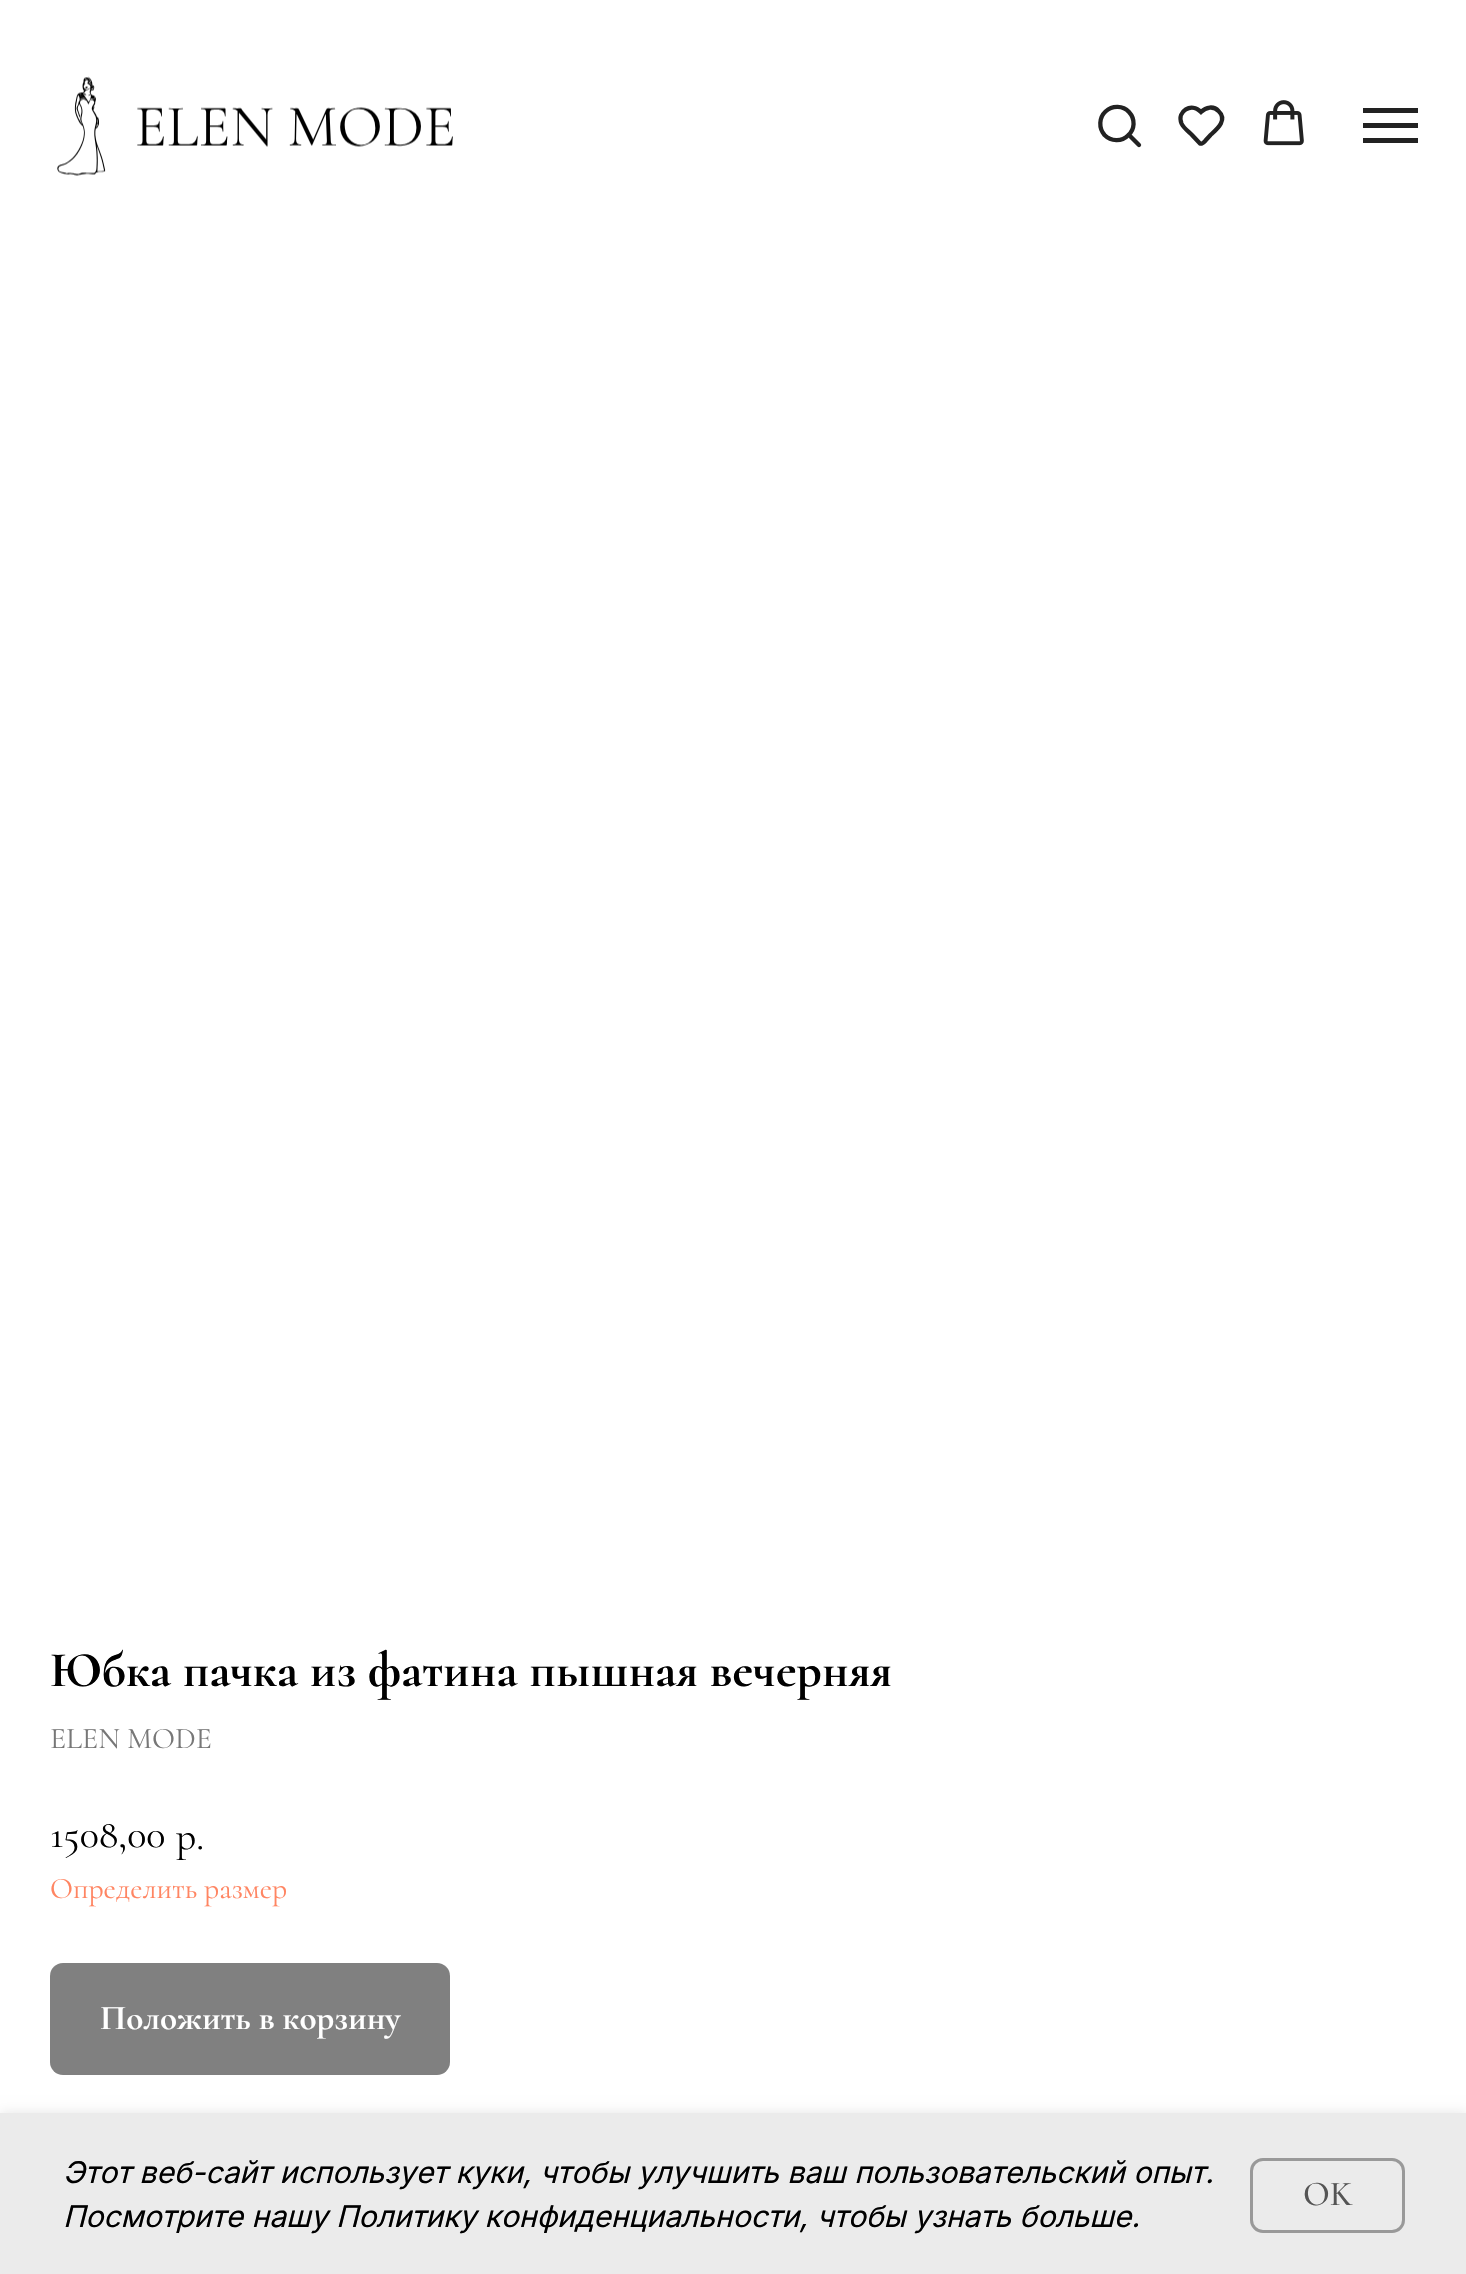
#include "include/core/SkBlurTypes.h"
#include "include/core/SkCanvas.h"
#include "include/core/SkData.h"
#include "include/core/SkFont.h"
#include "include/core/SkFontMgr.h"
#include "include/core/SkImage.h"
#include "include/core/SkMaskFilter.h"
#include "include/core/SkPaint.h"
#include "include/core/SkPathBuilder.h"
#include "include/core/SkTextBlob.h"
#include "include/effects/SkDashPathEffect.h"
#include "include/effects/SkGradientShader.h"
#include "include/utils/SkParsePath.h"

extern sk_sp<SkFontMgr> fontMgr;

void draw(SkCanvas* canvas) {
    SkPaint p;
    p.setAntiAlias(true);
    auto font = [&](const char* family, int weight, float size, bool italic = false) {
        SkFontStyle style(weight, SkFontStyle::kNormal_Width,
            italic ? SkFontStyle::kItalic_Slant : SkFontStyle::kUpright_Slant);
        SkFont result(fontMgr->matchFamilyStyle(family, style), size);
        result.setSubpixel(true);
        return result;
    };
    auto drawPhoto = [&](const char* path, float l, float t, float r, float b) {
        auto image = SkImages::DeferredFromEncodedData(SkData::MakeFromFileName(path));
        canvas->drawImageRect(image, SkRect::MakeLTRB(l, t, r, b), SkSamplingOptions());
    };
    canvas->clear(0xFFFFFFFF);
    drawPhoto("media/1.png", 57, 76, 453, 176);
    p.setStyle(SkPaint::kStroke_Style);
    p.setStrokeWidth(4.3f);
    p.setColor(0xFF222222);
    canvas->drawPath(SkPathBuilder().moveTo(1129, 112).cubicTo(1135.5f, 119, 1135, 129.5f, 1128, 135.5f).cubicTo(1121.5f, 142, 1111, 141.5f, 1104.5f, 135).cubicTo(1098.5f, 128, 1099, 117.5f, 1105.5f, 111.5f).cubicTo(1112.5f, 105, 1123, 105.5f, 1129, 112).close().detach(), p);
    p.setStrokeCap(SkPaint::kRound_Cap);
    canvas->drawPath(SkPathBuilder().moveTo(1130.5f, 136.5f).lineTo(1139, 145).detach(), p);
    canvas->drawPath(SkPathBuilder().moveTo(1218.5f, 111).cubicTo(1228, 120, 1217, 129, 1210.5f, 135).lineTo(1205.5f, 140.5f).cubicTo(1204.5f, 141.5f, 1202, 144.5f, 1200, 143.5f).lineTo(1192, 135).cubicTo(1188.5f, 131.5f, 1183.5f, 128, 1181.5f, 123.5f).cubicTo(1176.5f, 111, 1191.5f, 102, 1201, 112).cubicTo(1206, 107, 1213.5f, 105.5f, 1218.5f, 111).close().detach(), p);
    drawPhoto("media/2.png", 1263, 100, 1304, 146);
    p.setStyle(SkPaint::kFill_Style);
    {
        const struct { float l, t, r, b; SkColor color; } items[] = {
            {1363, 108, 1418, 113, 0xFF222222},
            {1363, 123, 1418, 128, 0xFF222222},
            {1363, 138, 1418, 143, 0xFF222222},
        };
        for (auto [l, t, r, b, color] : items) {
            p.setColor(color);
            canvas->drawRect(SkRect::MakeLTRB(l, t, r, b), p);
        }
    }
    auto font1 = font("Cormorant", 700, 50);
    p.setColor(0xFF000000);
    canvas->drawString("Юбка пачка из фатина пышная вечерняя", 50, 1686, font1, p);
    auto font2 = font("Cormorant", 400, 30);
    p.setColor(0xFF777777);
    canvas->drawString("ELEN MODE", 50, 1748, font2, p);
    auto font3 = font("Cormorant", 400, 40);
    p.setColor(0xFF000000);
    canvas->drawString("1508,00", 50, 1847, font3, p);
    canvas->drawString("р.", 176, 1849, font3, p);
    p.setColor(0xFFFF8562);
    canvas->drawString("Определить размер", 50, 1898, font2, p);
    p.setColor(0xFF808080);
    canvas->drawRoundRect(SkRect::MakeLTRB(50, 1963, 450, 2075), 13, 13, p);
    auto font4 = font("Cormorant", 700, 35);
    p.setColor(0xFFFFFFFF);
    canvas->drawString("Положить в корзину", 100, 2029, font4, p);
    p.setColor(0x1A000000);
    p.setMaskFilter(SkMaskFilter::MakeBlur(kNormal_SkBlurStyle, 6));
    canvas->drawRect(SkRect::MakeLTRB(0, 2113, 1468, 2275), p);
    p.setMaskFilter(nullptr);
    p.setColor(0xFFEBEBEB);
    canvas->drawRect(SkRect::MakeLTRB(0, 2113, 1466, 2274), p);
    auto font5 = font("Inter", 400, 30, true);
    p.setColor(0xFF000000);
    canvas->drawString("Этот веб-сайт использует куки, чтобы улучшить ваш пользовательский опыт.", 63, 2183, font5, p);
    canvas->drawString("Посмотрите нашу Политику конфиденциальности, чтобы узнать больше.", 63, 2227, font5, p);
    p.setStyle(SkPaint::kStroke_Style);
    p.setStrokeWidth(3);
    p.setStrokeCap(SkPaint::kButt_Cap);
    p.setColor(0xFF999999);
    canvas->drawRoundRect(SkRect::MakeLTRB(1251.5f, 2159.5f, 1403.5f, 2231.5f), 11.5f, 11.5f, p);
    auto font6 = font("Cormorant", 500, 35);
    p.setStyle(SkPaint::kFill_Style);
    p.setColor(0xFF555555);
    canvas->drawString("OK", 1303, 2205, font6, p);
}
